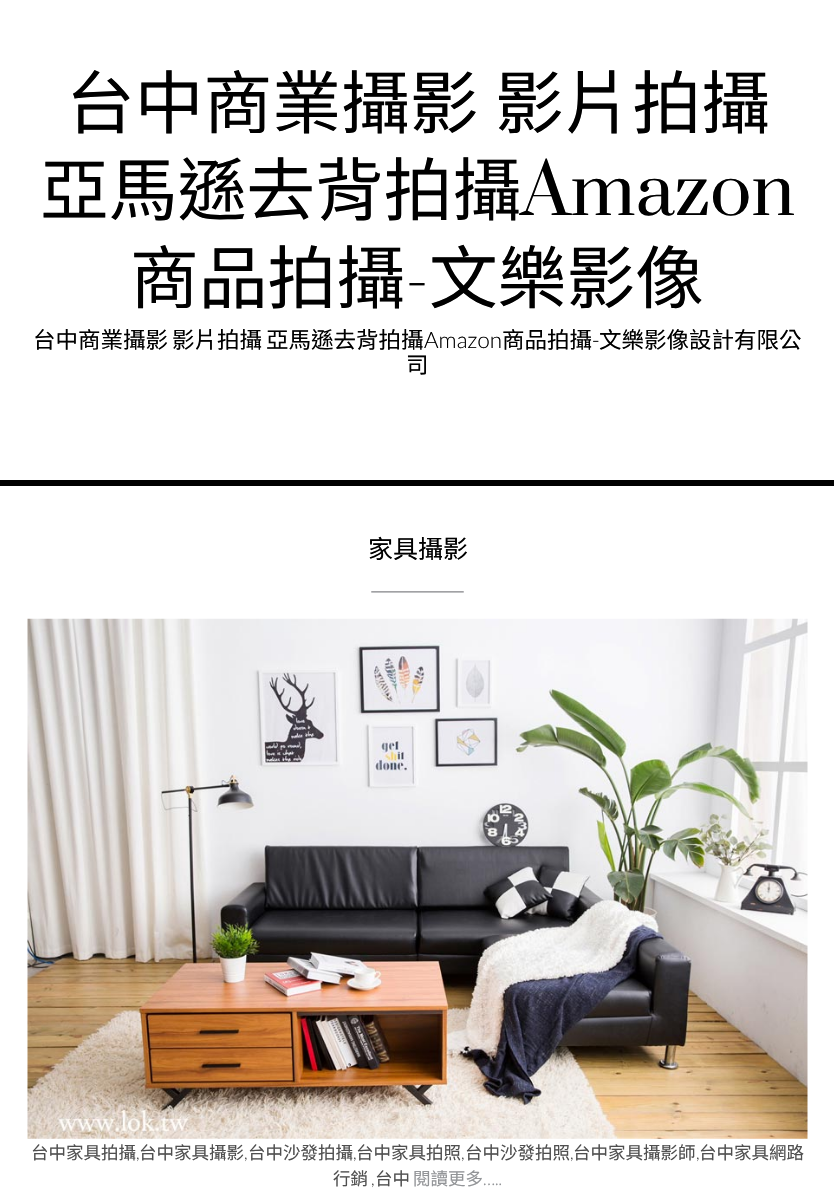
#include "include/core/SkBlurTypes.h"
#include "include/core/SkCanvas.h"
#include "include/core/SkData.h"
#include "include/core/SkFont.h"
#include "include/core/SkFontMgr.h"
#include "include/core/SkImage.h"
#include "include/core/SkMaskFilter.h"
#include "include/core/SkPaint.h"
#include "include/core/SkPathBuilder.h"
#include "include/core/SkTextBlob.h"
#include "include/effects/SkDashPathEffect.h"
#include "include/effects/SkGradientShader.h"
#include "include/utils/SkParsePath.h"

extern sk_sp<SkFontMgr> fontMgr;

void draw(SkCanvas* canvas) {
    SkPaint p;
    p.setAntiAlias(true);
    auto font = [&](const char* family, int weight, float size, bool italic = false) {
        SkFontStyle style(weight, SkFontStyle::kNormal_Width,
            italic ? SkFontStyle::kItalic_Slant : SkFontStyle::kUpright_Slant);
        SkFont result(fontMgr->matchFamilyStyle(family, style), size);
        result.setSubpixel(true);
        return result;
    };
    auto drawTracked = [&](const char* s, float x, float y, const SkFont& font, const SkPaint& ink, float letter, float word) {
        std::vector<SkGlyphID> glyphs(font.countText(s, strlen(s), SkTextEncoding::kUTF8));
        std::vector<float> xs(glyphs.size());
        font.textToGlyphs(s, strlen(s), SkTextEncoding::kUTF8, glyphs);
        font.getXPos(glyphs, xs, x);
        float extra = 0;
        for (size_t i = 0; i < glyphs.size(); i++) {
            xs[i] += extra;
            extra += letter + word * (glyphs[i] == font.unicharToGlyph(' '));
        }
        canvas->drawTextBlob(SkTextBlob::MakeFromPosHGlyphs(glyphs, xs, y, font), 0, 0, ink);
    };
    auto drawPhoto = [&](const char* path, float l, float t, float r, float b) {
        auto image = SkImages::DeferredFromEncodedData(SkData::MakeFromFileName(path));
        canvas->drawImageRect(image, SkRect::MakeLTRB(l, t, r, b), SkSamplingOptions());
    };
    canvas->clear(0xFFFFFFFF);
    auto font1 = font("Noto Sans CJK TC", 400, 68.75f);
    p.setColor(0xFF000000);
    drawTracked("台中商業攝影 影片拍攝", 66, 128, font1, p, 0, 1);
    canvas->drawString("亞馬遜去背拍攝", 40, 215, font1, p);
    auto font2 = font("Prata", 400, 68.75f);
    canvas->drawString("Amazon", 521, 215, font2, p);
    canvas->drawString("商品拍攝", 130, 303, font1, p);
    canvas->drawString("-", 405, 303, font2, p);
    canvas->drawString("文樂影像", 429, 303, font1, p);
    auto font3 = font("Noto Sans CJK TC", 400, 22.5f);
    drawTracked("台中商業攝影 影片拍攝 亞馬遜去背拍攝", 33, 348, font3, p, 0, -1);
    auto font4 = font("Lato", 300, 22.5f);
    canvas->drawString("Amazon", 424, 348, font4, p);
    canvas->drawString("商品拍攝", 502, 348, font3, p);
    canvas->drawString("-", 592, 348, font4, p);
    canvas->drawString("文樂影像設計有限公", 599, 348, font3, p);
    canvas->drawString("司", 406, 373, font3, p);
    canvas->drawRect(SkRect::MakeLTRB(0, 480, 834, 486), p);
    drawPhoto("media/1.png", 371, 591, 464, 593);
    auto font5 = font("Noto Sans CJK TC", 400, 25);
    canvas->drawString("家具攝影", 368, 558, font5, p);
    drawPhoto("media/2.png", 27, 618, 808, 1139);
    auto font6 = font("Noto Sans CJK TC", 400, 17.5f);
    p.setColor(0xFF4F4F4F);
    canvas->drawString("台中家具拍攝", 31, 1159, font6, p);
    auto font7 = font("Lato", 300, 17.5f);
    canvas->drawString(",", 136, 1159, font7, p);
    canvas->drawString("台中家具攝影", 139, 1159, font6, p);
    canvas->drawString(",", 244, 1159, font7, p);
    canvas->drawString("台中沙發拍攝", 248, 1159, font6, p);
    canvas->drawString(",", 353, 1159, font7, p);
    canvas->drawString("台中家具拍照", 356, 1159, font6, p);
    canvas->drawString(",", 461, 1159, font7, p);
    canvas->drawString("台中沙發拍照", 465, 1159, font6, p);
    canvas->drawString(",", 570, 1159, font7, p);
    canvas->drawString("台中家具攝影師", 573, 1159, font6, p);
    canvas->drawString(",", 696, 1159, font7, p);
    canvas->drawString("台中家具網路", 699, 1159, font6, p);
    canvas->drawString("行銷", 333, 1185, font6, p);
    canvas->drawString(",", 371, 1185, font7, p);
    canvas->drawString("台中", 375, 1185, font6, p);
    p.setColor(0xFF939598);
    canvas->drawString("閱讀更多", 413, 1185, font6, p);
    canvas->drawString("…..", 483, 1185, font7, p);
}
